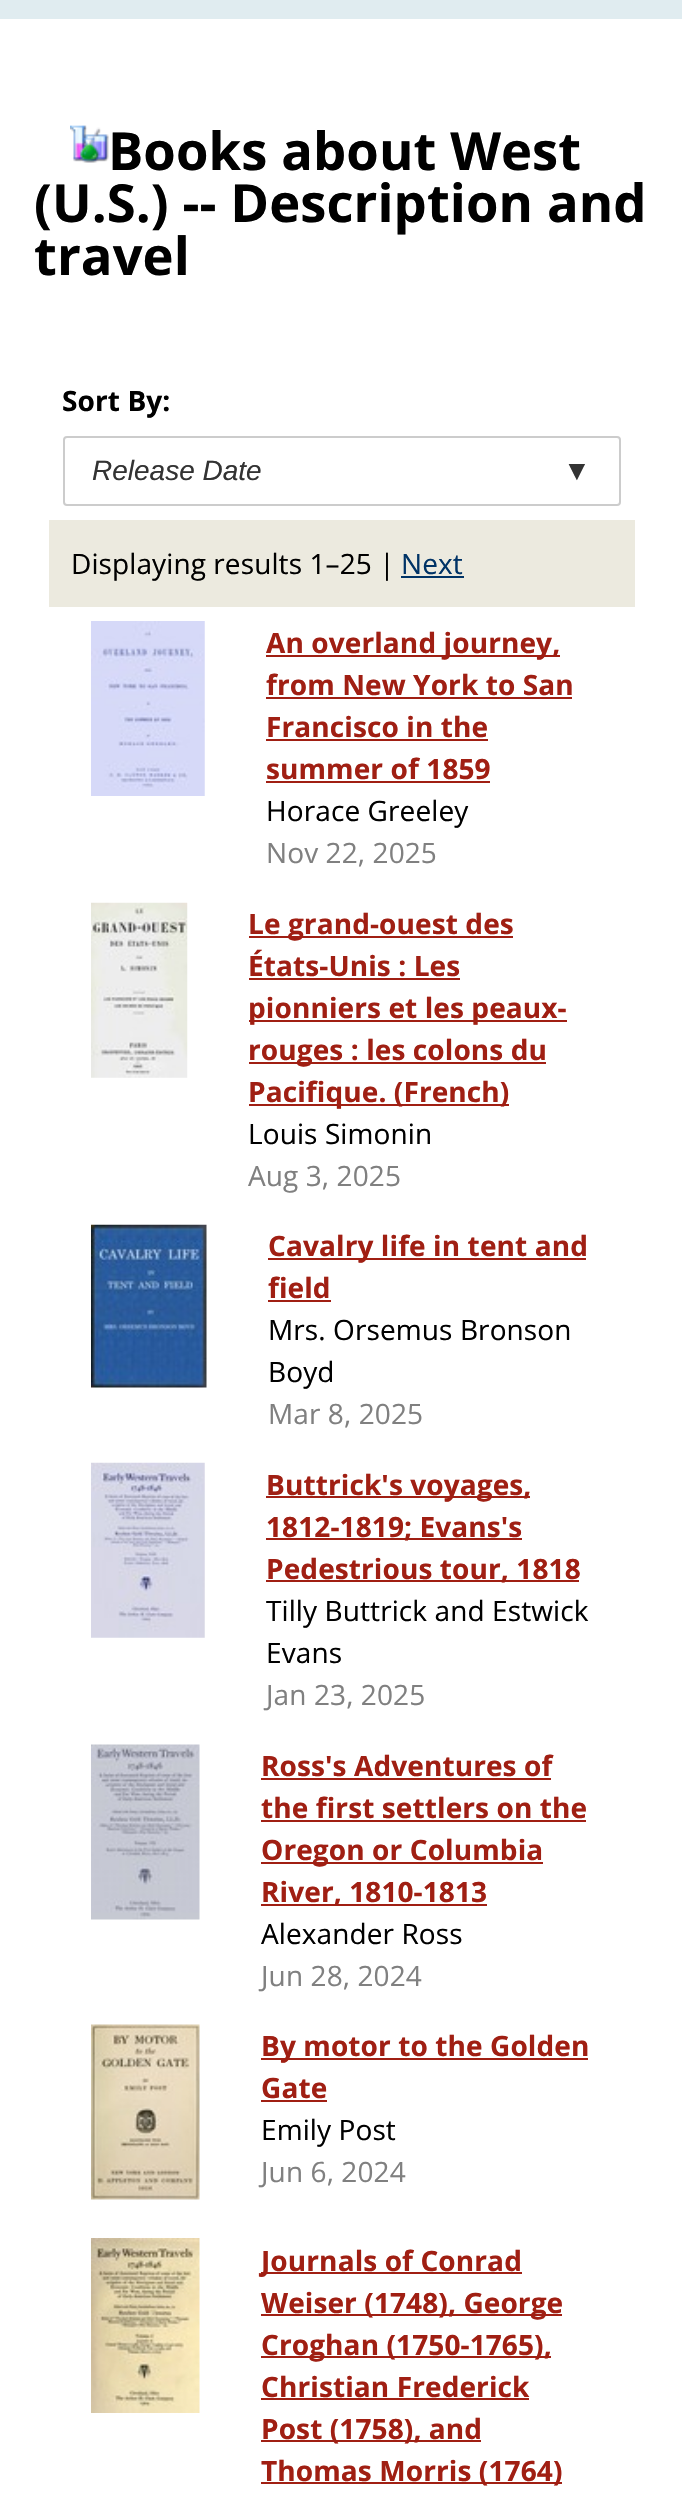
#include "include/core/SkBlurTypes.h"
#include "include/core/SkCanvas.h"
#include "include/core/SkData.h"
#include "include/core/SkFont.h"
#include "include/core/SkFontMgr.h"
#include "include/core/SkImage.h"
#include "include/core/SkMaskFilter.h"
#include "include/core/SkPaint.h"
#include "include/core/SkPathBuilder.h"
#include "include/core/SkTextBlob.h"
#include "include/effects/SkDashPathEffect.h"
#include "include/effects/SkGradientShader.h"
#include "include/utils/SkParsePath.h"

extern sk_sp<SkFontMgr> fontMgr;

void draw(SkCanvas* canvas) {
    SkPaint p;
    p.setAntiAlias(true);
    auto font = [&](const char* family, int weight, float size, bool italic = false) {
        SkFontStyle style(weight, SkFontStyle::kNormal_Width,
            italic ? SkFontStyle::kItalic_Slant : SkFontStyle::kUpright_Slant);
        SkFont result(fontMgr->matchFamilyStyle(family, style), size);
        result.setSubpixel(true);
        return result;
    };
    auto drawTracked = [&](const char* s, float x, float y, const SkFont& font, const SkPaint& ink, float letter, float word) {
        std::vector<SkGlyphID> glyphs(font.countText(s, strlen(s), SkTextEncoding::kUTF8));
        std::vector<float> xs(glyphs.size());
        font.textToGlyphs(s, strlen(s), SkTextEncoding::kUTF8, glyphs);
        font.getXPos(glyphs, xs, x);
        float extra = 0;
        for (size_t i = 0; i < glyphs.size(); i++) {
            xs[i] += extra;
            extra += letter + word * (glyphs[i] == font.unicharToGlyph(' '));
        }
        canvas->drawTextBlob(SkTextBlob::MakeFromPosHGlyphs(glyphs, xs, y, font), 0, 0, ink);
    };
    auto drawPhoto = [&](const char* path, float l, float t, float r, float b) {
        auto image = SkImages::DeferredFromEncodedData(SkData::MakeFromFileName(path));
        canvas->drawImageRect(image, SkRect::MakeLTRB(l, t, r, b), SkSamplingOptions());
    };
    canvas->clear(0xFFFFFFFF);
    p.setColor(0xFFE0ECF0);
    canvas->drawRect(SkRect::MakeLTRB(0, 0, 682, 19), p);
    drawPhoto("media/1.png", 70, 125, 109, 163);
    auto font1 = font("Open Sans", 700, 52.5f);
    p.setColor(0xFF000000);
    {
        const struct { const char* s; float x, y; } items[] = {
            {"Books about West", 108, 170},
            {"(U.S.) -- Description and", 34, 222},
            {"travel", 34, 275},
        };
        for (auto [s, x, y] : items) {
            drawTracked(s, x, y, font1, p, 0.1f, 0);
        }
    }
    auto font2 = font("Open Sans", 700, 28);
    drawTracked("Sort By:", 62, 411, font2, p, 0.1f, 0);
    p.setStyle(SkPaint::kStroke_Style);
    p.setStrokeWidth(2);
    p.setColor(0xFFCCCCCC);
    canvas->drawRoundRect(SkRect::MakeLTRB(64, 437, 620, 505), 3, 3, p);
    auto font3 = font("Liberation Sans", 400, 28, true);
    p.setStyle(SkPaint::kFill_Style);
    p.setColor(0xFF333333);
    canvas->drawString("Release Date", 92, 480, font3, p);
    canvas->drawString("▼", 563, 480, font3, p);
    p.setColor(0xFFECEADF);
    canvas->drawRect(SkRect::MakeLTRB(49, 520, 635, 607), p);
    auto font4 = font("Open Sans", 400, 28);
    p.setColor(0xFF000000);
    drawTracked("Displaying results 1–25 |", 71, 574, font4, p, 0.1f, 0);
    p.setColor(0xFF003366);
    drawTracked("Next", 401, 574, font4, p, 0.1f, 0);
    canvas->drawRect(SkRect::MakeLTRB(401, 576, 464, 578), p);
    drawPhoto("media/2.png", 91, 621, 205, 796);
    p.setColor(0xFFA01F13);
    canvas->drawRect(SkRect::MakeLTRB(266, 655, 560, 657), p);
    drawTracked("An overland journey,", 266, 653, font2, p, 0.1f, 0);
    drawTracked("from New York to San", 266, 695, font2, p, 0.1f, 0);
    canvas->drawRect(SkRect::MakeLTRB(266, 697, 572, 699), p);
    drawTracked("Francisco in the", 266, 737, font2, p, 0.1f, 0);
    canvas->drawRect(SkRect::MakeLTRB(266, 739, 488, 741), p);
    drawTracked("summer of 1859", 266, 779, font2, p, 0.1f, 0);
    canvas->drawRect(SkRect::MakeLTRB(266, 781, 490, 783), p);
    p.setColor(0xFF000000);
    drawTracked("Horace Greeley", 266, 821, font4, p, 0.1f, 0);
    p.setColor(0xFF808080);
    drawTracked("Nov 22, 2025", 266, 863, font4, p, 0.1f, 0);
    drawPhoto("media/3.png", 91, 902, 188, 1078);
    p.setColor(0xFFA01F13);
    canvas->drawRect(SkRect::MakeLTRB(249, 936, 513, 938), p);
    drawTracked("Le grand-ouest des", 248, 934, font2, p, 0.1f, 0);
    drawTracked("États-Unis : Les", 248, 976, font2, p, 0.1f, 0);
    canvas->drawRect(SkRect::MakeLTRB(249, 978, 460, 980), p);
    canvas->drawRect(SkRect::MakeLTRB(249, 1020, 567, 1022), p);
    drawTracked("pionniers et les peaux-", 248, 1018, font2, p, 0.1f, 0);
    canvas->drawRect(SkRect::MakeLTRB(249, 1062, 546, 1064), p);
    drawTracked("rouges : les colons du", 248, 1060, font2, p, 0.1f, 0);
    canvas->drawRect(SkRect::MakeLTRB(249, 1104, 509, 1106), p);
    drawTracked("Pacifique. (French)", 248, 1102, font2, p, 0.1f, 0);
    p.setColor(0xFF000000);
    drawTracked("Louis Simonin", 248, 1144, font4, p, 0.1f, 0);
    p.setColor(0xFF808080);
    drawTracked("Aug 3, 2025", 248, 1186, font4, p, 0.1f, 0);
    drawPhoto("media/4.png", 91, 1224, 207, 1388);
    p.setColor(0xFFA01F13);
    canvas->drawRect(SkRect::MakeLTRB(268, 1258, 586, 1260), p);
    drawTracked("Cavalry life in tent and", 268, 1256, font2, p, 0.1f, 0);
    drawTracked("field", 268, 1298, font2, p, 0.1f, 0);
    canvas->drawRect(SkRect::MakeLTRB(268, 1300, 331, 1302), p);
    p.setColor(0xFF000000);
    drawTracked("Mrs. Orsemus Bronson", 268, 1340, font4, p, 0.1f, 0);
    drawTracked("Boyd", 268, 1382, font4, p, 0.1f, 0);
    p.setColor(0xFF808080);
    drawTracked("Mar 8, 2025", 268, 1424, font4, p, 0.1f, 0);
    drawPhoto("media/5.png", 91, 1462, 205, 1638);
    p.setColor(0xFFA01F13);
    canvas->drawRect(SkRect::MakeLTRB(266, 1496, 530, 1498), p);
    drawTracked("Buttrick's voyages,", 266, 1495, font2, p, 0.1f, 0);
    canvas->drawRect(SkRect::MakeLTRB(266, 1538, 522, 1540), p);
    drawTracked("1812-1819; Evans's", 266, 1537, font2, p, 0.1f, 0);
    canvas->drawRect(SkRect::MakeLTRB(266, 1580, 579, 1582), p);
    drawTracked("Pedestrious tour, 1818", 266, 1579, font2, p, 0.1f, 0);
    p.setColor(0xFF000000);
    drawTracked("Tilly Buttrick and Estwick", 266, 1621, font4, p, 0.1f, 0);
    drawTracked("Evans", 266, 1663, font4, p, 0.1f, 0);
    p.setColor(0xFF808080);
    drawTracked("Jan 23, 2025", 266, 1705, font4, p, 0.1f, 0);
    drawPhoto("media/6.png", 91, 1744, 200, 1920);
    p.setColor(0xFFA01F13);
    drawTracked("Ross's Adventures of", 261, 1776, font2, p, 0.1f, 0);
    canvas->drawRect(SkRect::MakeLTRB(261, 1778, 551, 1780), p);
    drawTracked("the first settlers on the", 261, 1818, font2, p, 0.1f, 0);
    canvas->drawRect(SkRect::MakeLTRB(261, 1820, 586, 1822), p);
    canvas->drawRect(SkRect::MakeLTRB(261, 1862, 543, 1864), p);
    drawTracked("Oregon or Columbia", 261, 1860, font2, p, 0.1f, 0);
    canvas->drawRect(SkRect::MakeLTRB(261, 1904, 487, 1906), p);
    drawTracked("River, 1810-1813", 261, 1902, font2, p, 0.1f, 0);
    p.setColor(0xFF000000);
    drawTracked("Alexander Ross", 261, 1944, font4, p, 0.1f, 0);
    p.setColor(0xFF808080);
    drawTracked("Jun 28, 2024", 261, 1986, font4, p, 0.1f, 0);
    drawPhoto("media/7.png", 91, 2024, 200, 2200);
    p.setColor(0xFFA01F13);
    canvas->drawRect(SkRect::MakeLTRB(261, 2058, 588, 2060), p);
    drawTracked("By motor to the Golden", 261, 2056, font2, p, 0.1f, 0);
    drawTracked("Gate", 261, 2098, font2, p, 0.1f, 0);
    canvas->drawRect(SkRect::MakeLTRB(261, 2100, 327, 2102), p);
    p.setColor(0xFF000000);
    drawTracked("Emily Post", 261, 2140, font4, p, 0.1f, 0);
    p.setColor(0xFF808080);
    drawTracked("Jun 6, 2024", 261, 2182, font4, p, 0.1f, 0);
    drawPhoto("media/8.png", 91, 2238, 200, 2413);
    p.setColor(0xFFA01F13);
    canvas->drawRect(SkRect::MakeLTRB(261, 2272, 522, 2274), p);
    drawTracked("Journals of Conrad", 261, 2271, font2, p, 0.1f, 0);
    canvas->drawRect(SkRect::MakeLTRB(261, 2314, 562, 2316), p);
    drawTracked("Weiser (1748), George", 261, 2313, font2, p, 0.1f, 0);
    canvas->drawRect(SkRect::MakeLTRB(261, 2356, 551, 2358), p);
    drawTracked("Croghan (1750-1765),", 261, 2355, font2, p, 0.1f, 0);
    drawTracked("Christian Frederick", 261, 2397, font2, p, 0.1f, 0);
    canvas->drawRect(SkRect::MakeLTRB(261, 2398, 529, 2400), p);
    canvas->drawRect(SkRect::MakeLTRB(261, 2440, 481, 2442), p);
    drawTracked("Post (1758), and", 261, 2439, font2, p, 0.1f, 0);
    canvas->drawRect(SkRect::MakeLTRB(261, 2482, 562, 2484), p);
    drawTracked("Thomas Morris (1764)", 261, 2481, font2, p, 0.1f, 0);
}
